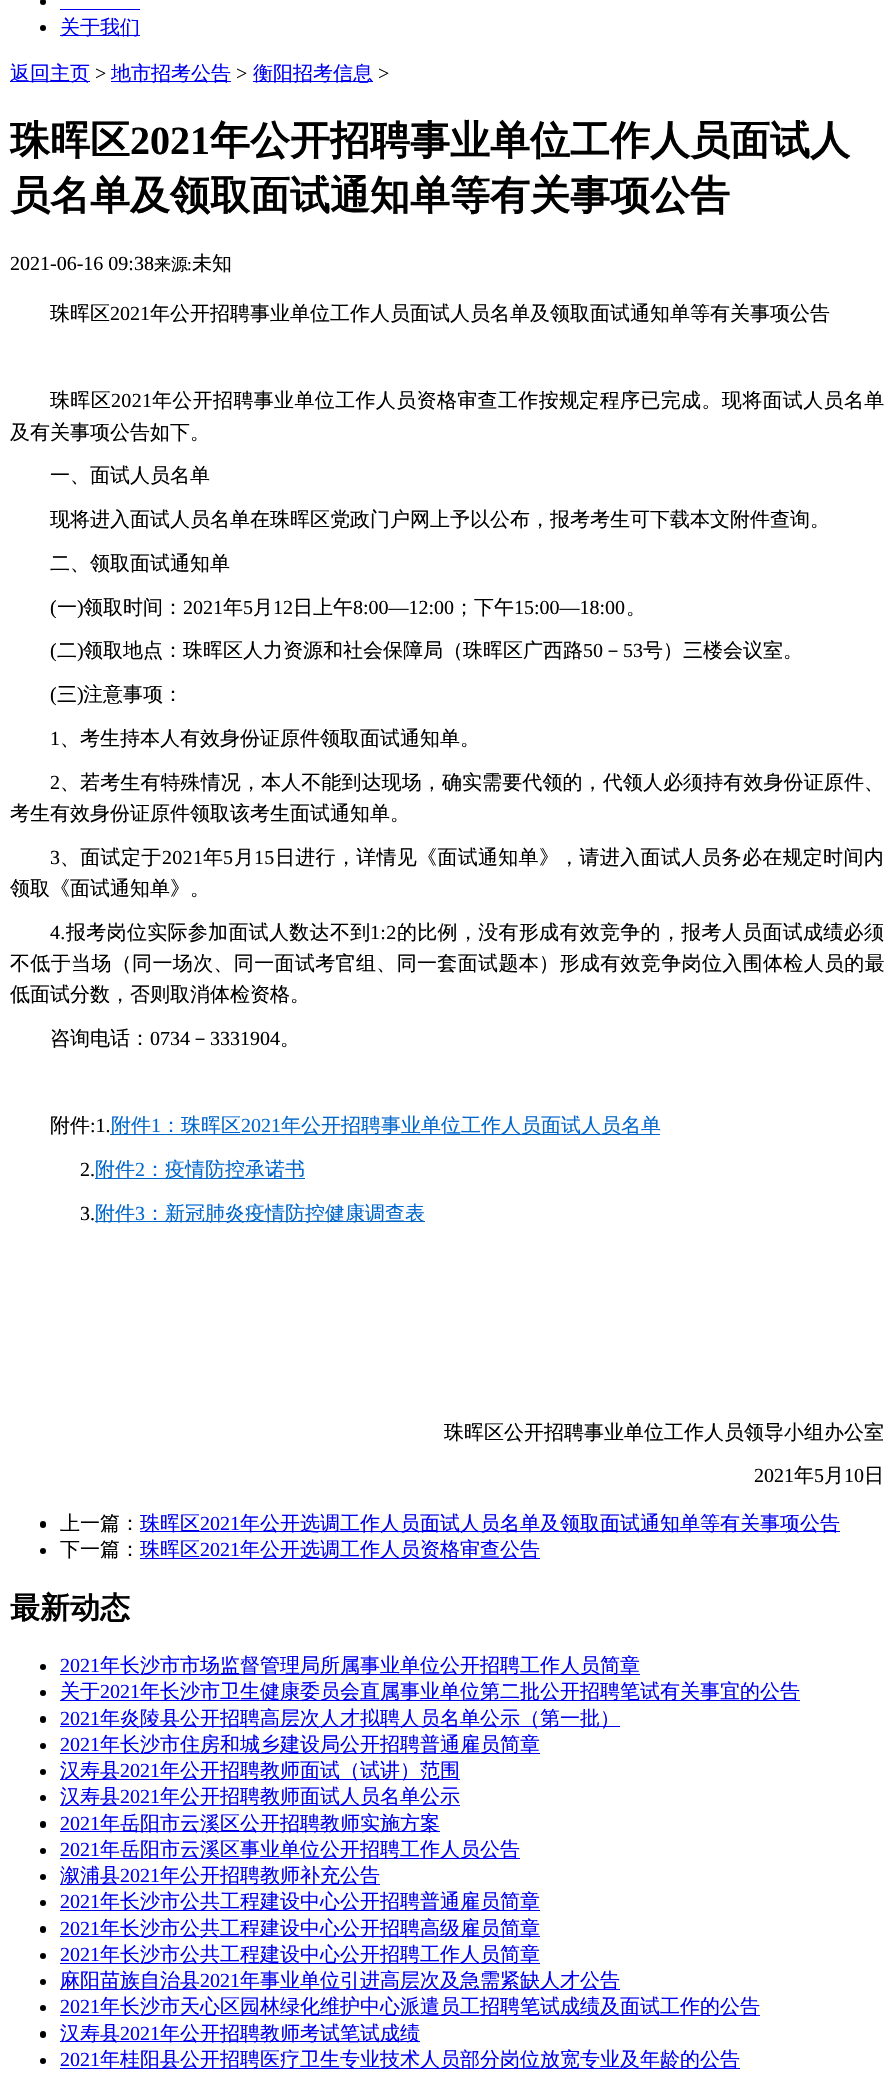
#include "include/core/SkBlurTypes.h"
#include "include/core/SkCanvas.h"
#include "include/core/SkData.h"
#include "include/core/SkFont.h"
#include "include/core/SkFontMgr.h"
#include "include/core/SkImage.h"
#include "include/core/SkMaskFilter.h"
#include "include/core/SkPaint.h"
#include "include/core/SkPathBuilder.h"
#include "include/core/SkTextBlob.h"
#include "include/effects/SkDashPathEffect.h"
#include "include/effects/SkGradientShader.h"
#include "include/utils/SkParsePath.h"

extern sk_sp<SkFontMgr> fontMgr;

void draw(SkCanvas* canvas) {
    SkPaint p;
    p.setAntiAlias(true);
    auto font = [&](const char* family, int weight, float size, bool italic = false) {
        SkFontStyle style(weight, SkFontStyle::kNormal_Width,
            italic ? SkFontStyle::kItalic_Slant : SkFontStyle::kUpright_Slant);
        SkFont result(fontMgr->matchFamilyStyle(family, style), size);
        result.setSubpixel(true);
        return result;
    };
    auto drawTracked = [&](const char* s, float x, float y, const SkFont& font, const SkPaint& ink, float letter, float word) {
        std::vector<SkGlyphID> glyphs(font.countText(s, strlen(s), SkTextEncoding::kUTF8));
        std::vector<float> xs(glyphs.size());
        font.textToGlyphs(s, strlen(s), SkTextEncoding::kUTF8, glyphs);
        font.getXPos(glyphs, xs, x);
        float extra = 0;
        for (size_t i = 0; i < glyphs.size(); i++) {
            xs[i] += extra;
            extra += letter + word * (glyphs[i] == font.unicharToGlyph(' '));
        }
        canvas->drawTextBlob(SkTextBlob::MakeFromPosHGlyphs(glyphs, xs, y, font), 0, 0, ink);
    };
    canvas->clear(0xFFFFFFFF);
    p.setColor(0xFF000000);
    canvas->drawCircle(43, 2, 3, p);
    p.setColor(0xFF0000EE);
    canvas->drawRect(SkRect::MakeLTRB(60, 9, 140, 10), p);
    p.setColor(0xFF000000);
    canvas->drawCircle(43, 28, 3, p);
    p.setColor(0xFF0000EE);
    canvas->drawRect(SkRect::MakeLTRB(60, 35, 140, 36), p);
    auto font1 = font("WenQuanYi Zen Hei", 500, 20);
    canvas->drawString("关于我们", 60, 34, font1, p);
    canvas->drawRect(SkRect::MakeLTRB(10, 81, 90, 82), p);
    canvas->drawString("返回主页", 10, 80, font1, p);
    auto font2 = font("Liberation Serif", 400, 20);
    p.setColor(0xFF000000);
    canvas->drawString(">", 95, 80, font2, p);
    p.setColor(0xFF0000EE);
    canvas->drawRect(SkRect::MakeLTRB(111, 81, 231, 82), p);
    canvas->drawString("地市招考公告", 111, 80, font1, p);
    p.setColor(0xFF000000);
    canvas->drawString(">", 236, 80, font2, p);
    p.setColor(0xFF0000EE);
    canvas->drawRect(SkRect::MakeLTRB(253, 81, 373, 82), p);
    canvas->drawString("衡阳招考信息", 253, 80, font1, p);
    p.setColor(0xFF000000);
    canvas->drawString(">", 378, 80, font2, p);
    auto font3 = font("WenQuanYi Zen Hei", 700, 40);
    canvas->drawString("珠晖区", 10, 154, font3, p);
    auto font4 = font("Liberation Serif", 700, 40);
    canvas->drawString("2021", 130, 154, font4, p);
    canvas->drawString("年公开招聘事业单位工作人员面试人", 210, 154, font3, p);
    canvas->drawString("员名单及领取面试通知单等有关事项公告", 10, 209, font3, p);
    canvas->drawString("2021-06-16 09:38", 10, 270, font2, p);
    auto font5 = font("WenQuanYi Zen Hei", 500, 17);
    canvas->drawString("来源", 154, 270, font5, p);
    auto font6 = font("Liberation Serif", 400, 17);
    canvas->drawString(":", 187, 270, font6, p);
    canvas->drawString("未知", 192, 270, font1, p);
    canvas->drawString("珠晖区", 50, 320, font1, p);
    canvas->drawString("2021", 110, 320, font2, p);
    canvas->drawString("年公开招聘事业单位工作人员面试人员名单及领取面试通知单等有关事项公告", 150, 320, font1, p);
    drawTracked("珠晖区", 50, 407, font1, p, 0.35f, 0);
    drawTracked("2021", 111, 407, font2, p, 0.35f, 0);
    drawTracked("年公开招聘事业单位工作人员资格审查工作按规定程序已完成。现将面试人员名单", 152, 407, font1, p, 0.35f, 0);
    {
        const struct { const char* s; float x, y; } items[] = {
            {"及有关事项公告如下。", 10, 439},
            {"一、面试人员名单", 50, 482},
            {"现将进入面试人员名单在珠晖区党政门户网上予以公布，报考考生可下载本文附件查询。", 50, 526},
            {"二、领取面试通知单", 50, 570},
        };
        for (auto [s, x, y] : items) {
            canvas->drawString(s, x, y, font1, p);
        }
    }
    canvas->drawString("(", 50, 614, font2, p);
    canvas->drawString("一", 57, 614, font1, p);
    canvas->drawString(")", 77, 614, font2, p);
    canvas->drawString("领取时间：", 83, 614, font1, p);
    canvas->drawString("2021", 183, 614, font2, p);
    canvas->drawString("年", 223, 614, font1, p);
    canvas->drawString("5", 243, 614, font2, p);
    canvas->drawString("月", 253, 614, font1, p);
    canvas->drawString("12", 273, 614, font2, p);
    canvas->drawString("日上午", 293, 614, font1, p);
    canvas->drawString("8:00—12:00", 353, 614, font2, p);
    canvas->drawString("；下午", 454, 614, font1, p);
    canvas->drawString("15:00—18:00", 514, 614, font2, p);
    canvas->drawString("。", 626, 614, font1, p);
    canvas->drawString("(", 50, 657, font2, p);
    canvas->drawString("二", 57, 657, font1, p);
    canvas->drawString(")", 77, 657, font2, p);
    canvas->drawString("领取地点：珠晖区人力资源和社会保障局（珠晖区广西路", 83, 657, font1, p);
    canvas->drawString("50", 583, 657, font2, p);
    canvas->drawString("－", 603, 657, font1, p);
    canvas->drawString("53", 623, 657, font2, p);
    canvas->drawString("号）三楼会议室。", 643, 657, font1, p);
    canvas->drawString("(", 50, 701, font2, p);
    canvas->drawString("三", 57, 701, font1, p);
    canvas->drawString(")", 77, 701, font2, p);
    canvas->drawString("注意事项：", 83, 701, font1, p);
    canvas->drawString("1", 50, 745, font2, p);
    canvas->drawString("、考生持本人有效身份证原件领取面试通知单。", 60, 745, font1, p);
    drawTracked("2", 50, 789, font2, p, 0.1f, 0);
    drawTracked("、若考生有特殊情况，本人不能到达现场，确实需要代领的，代领人必须持有效身份证原件、", 60, 789, font1, p, 0.1f, 0);
    canvas->drawString("考生有效身份证原件领取该考生面试通知单。", 10, 820, font1, p);
    drawTracked("3", 50, 864, font2, p, 0.3f, 0);
    drawTracked("、面试定于", 60, 864, font1, p, 0.3f, 0);
    drawTracked("2021", 162, 864, font2, p, 0.3f, 0);
    drawTracked("年", 203, 864, font1, p, 0.3f, 0);
    drawTracked("5", 223, 864, font2, p, 0.3f, 0);
    drawTracked("月", 234, 864, font1, p, 0.3f, 0);
    drawTracked("15", 254, 864, font2, p, 0.3f, 0);
    drawTracked("日进行，详情见《面试通知单》，请进入面试人员务必在规定时间内", 275, 864, font1, p, 0.3f, 0);
    canvas->drawString("领取《面试通知单》。", 10, 895, font1, p);
    drawTracked("4.", 50, 939, font2, p, 0.3f, 0);
    drawTracked("报考岗位实际参加面试人数达不到", 66, 939, font1, p, 0.3f, 0);
    drawTracked("1:2", 370, 939, font2, p, 0.3f, 0);
    drawTracked("的比例，没有形成有效竞争的，报考人员面试成绩必须", 397, 939, font1, p, 0.3f, 0);
    drawTracked("不低于当场（同一场次、同一面试考官组、同一套面试题本）形成有效竞争岗位入围体检人员的最", 10, 970, font1, p, 0.35f, 0);
    canvas->drawString("低面试分数，否则取消体检资格。", 10, 1001, font1, p);
    canvas->drawString("咨询电话：", 50, 1045, font1, p);
    canvas->drawString("0734", 150, 1045, font2, p);
    canvas->drawString("－", 190, 1045, font1, p);
    canvas->drawString("3331904", 210, 1045, font2, p);
    canvas->drawString("。", 280, 1045, font1, p);
    canvas->drawString("附件", 50, 1132, font1, p);
    canvas->drawString(":1.", 90, 1132, font2, p);
    p.setColor(0xFF0066CC);
    canvas->drawRect(SkRect::MakeLTRB(110, 1134, 660, 1135), p);
    canvas->drawString("附件", 111, 1132, font1, p);
    canvas->drawString("1", 151, 1132, font2, p);
    canvas->drawString("：珠晖区", 161, 1132, font1, p);
    canvas->drawString("2021", 241, 1132, font2, p);
    canvas->drawString("年公开招聘事业单位工作人员面试人员名单", 281, 1132, font1, p);
    p.setColor(0xFF000000);
    canvas->drawString("2.", 80, 1176, font2, p);
    p.setColor(0xFF0066CC);
    canvas->drawRect(SkRect::MakeLTRB(95, 1178, 305, 1179), p);
    canvas->drawString("附件", 95, 1176, font1, p);
    canvas->drawString("2", 135, 1176, font2, p);
    canvas->drawString("：疫情防控承诺书", 145, 1176, font1, p);
    p.setColor(0xFF000000);
    canvas->drawString("3.", 80, 1220, font2, p);
    p.setColor(0xFF0066CC);
    canvas->drawRect(SkRect::MakeLTRB(95, 1221, 425, 1222), p);
    canvas->drawString("附件", 95, 1220, font1, p);
    canvas->drawString("3", 135, 1220, font2, p);
    canvas->drawString("：新冠肺炎疫情防控健康调查表", 145, 1220, font1, p);
    p.setColor(0xFF000000);
    canvas->drawString("珠晖区公开招聘事业单位工作人员领导小组办公室", 444, 1439, font1, p);
    canvas->drawString("2021", 754, 1482, font2, p);
    canvas->drawString("年", 794, 1482, font1, p);
    canvas->drawString("5", 814, 1482, font2, p);
    canvas->drawString("月", 824, 1482, font1, p);
    canvas->drawString("10", 844, 1482, font2, p);
    canvas->drawString("日", 864, 1482, font1, p);
    canvas->drawRoundRect(SkRect::MakeLTRB(40, 1521, 46, 1528), 3, 3, p);
    canvas->drawString("上一篇：", 60, 1530, font1, p);
    p.setColor(0xFF0000EE);
    canvas->drawRect(SkRect::MakeLTRB(140, 1531, 840, 1532), p);
    canvas->drawString("珠晖区", 140, 1530, font1, p);
    canvas->drawString("2021", 200, 1530, font2, p);
    canvas->drawString("年公开选调工作人员面试人员名单及领取面试通知单等有关事项公告", 240, 1530, font1, p);
    p.setColor(0xFF000000);
    canvas->drawCircle(43, 1551, 3, p);
    canvas->drawString("下一篇：", 60, 1556, font1, p);
    p.setColor(0xFF0000EE);
    canvas->drawRect(SkRect::MakeLTRB(140, 1558, 540, 1559), p);
    canvas->drawString("珠晖区", 140, 1556, font1, p);
    canvas->drawString("2021", 200, 1556, font2, p);
    canvas->drawString("年公开选调工作人员资格审查公告", 240, 1556, font1, p);
    auto font7 = font("WenQuanYi Zen Hei", 700, 30);
    p.setColor(0xFF000000);
    canvas->drawString("最新动态", 10, 1618, font7, p);
    canvas->drawCircle(43, 1667, 3, p);
    p.setColor(0xFF0000EE);
    canvas->drawString("2021", 60, 1672, font2, p);
    canvas->drawRect(SkRect::MakeLTRB(60, 1674, 640, 1675), p);
    canvas->drawString("年长沙市市场监督管理局所属事业单位公开招聘工作人员简章", 100, 1672, font1, p);
    p.setColor(0xFF000000);
    canvas->drawCircle(43, 1693, 3, p);
    p.setColor(0xFF0000EE);
    canvas->drawRect(SkRect::MakeLTRB(60, 1700, 800, 1701), p);
    canvas->drawString("关于", 60, 1698, font1, p);
    canvas->drawString("2021", 100, 1698, font2, p);
    canvas->drawString("年长沙市卫生健康委员会直属事业单位第二批公开招聘笔试有关事宜的公告", 140, 1698, font1, p);
    p.setColor(0xFF000000);
    canvas->drawRoundRect(SkRect::MakeLTRB(40, 1716, 46, 1723), 3, 3, p);
    p.setColor(0xFF0000EE);
    canvas->drawString("2021", 60, 1725, font2, p);
    canvas->drawRect(SkRect::MakeLTRB(60, 1726, 620, 1727), p);
    canvas->drawString("年炎陵县公开招聘高层次人才拟聘人员名单公示（第一批）", 100, 1725, font1, p);
    p.setColor(0xFF000000);
    canvas->drawCircle(43, 1746, 3, p);
    p.setColor(0xFF0000EE);
    canvas->drawString("2021", 60, 1751, font2, p);
    canvas->drawRect(SkRect::MakeLTRB(60, 1753, 540, 1754), p);
    canvas->drawString("年长沙市住房和城乡建设局公开招聘普通雇员简章", 100, 1751, font1, p);
    p.setColor(0xFF000000);
    canvas->drawCircle(43, 1772, 3, p);
    p.setColor(0xFF0000EE);
    canvas->drawRect(SkRect::MakeLTRB(60, 1779, 460, 1780), p);
    canvas->drawString("汉寿县", 60, 1777, font1, p);
    canvas->drawString("2021", 120, 1777, font2, p);
    canvas->drawString("年公开招聘教师面试（试讲）范围", 160, 1777, font1, p);
    p.setColor(0xFF000000);
    canvas->drawCircle(43, 1798, 3, p);
    p.setColor(0xFF0000EE);
    canvas->drawRect(SkRect::MakeLTRB(60, 1805, 460, 1806), p);
    canvas->drawString("汉寿县", 60, 1803, font1, p);
    canvas->drawString("2021", 120, 1803, font2, p);
    canvas->drawString("年公开招聘教师面试人员名单公示", 160, 1803, font1, p);
    p.setColor(0xFF000000);
    canvas->drawRoundRect(SkRect::MakeLTRB(40, 1821, 46, 1828), 3, 3, p);
    p.setColor(0xFF0000EE);
    canvas->drawString("2021", 60, 1830, font2, p);
    canvas->drawRect(SkRect::MakeLTRB(60, 1831, 440, 1832), p);
    canvas->drawString("年岳阳市云溪区公开招聘教师实施方案", 100, 1830, font1, p);
    p.setColor(0xFF000000);
    canvas->drawCircle(43, 1851, 3, p);
    p.setColor(0xFF0000EE);
    canvas->drawString("2021", 60, 1856, font2, p);
    canvas->drawRect(SkRect::MakeLTRB(60, 1858, 520, 1859), p);
    canvas->drawString("年岳阳市云溪区事业单位公开招聘工作人员公告", 100, 1856, font1, p);
    p.setColor(0xFF000000);
    canvas->drawCircle(43, 1877, 3, p);
    p.setColor(0xFF0000EE);
    canvas->drawRect(SkRect::MakeLTRB(60, 1884, 380, 1885), p);
    canvas->drawString("溆浦县", 60, 1882, font1, p);
    canvas->drawString("2021", 120, 1882, font2, p);
    canvas->drawString("年公开招聘教师补充公告", 160, 1882, font1, p);
    p.setColor(0xFF000000);
    canvas->drawCircle(43, 1903, 3, p);
    p.setColor(0xFF0000EE);
    canvas->drawString("2021", 60, 1908, font2, p);
    canvas->drawRect(SkRect::MakeLTRB(60, 1910, 540, 1911), p);
    canvas->drawString("年长沙市公共工程建设中心公开招聘普通雇员简章", 100, 1908, font1, p);
    p.setColor(0xFF000000);
    canvas->drawRoundRect(SkRect::MakeLTRB(40, 1926, 46, 1933), 3, 3, p);
    p.setColor(0xFF0000EE);
    canvas->drawString("2021", 60, 1935, font2, p);
    canvas->drawRect(SkRect::MakeLTRB(60, 1936, 540, 1937), p);
    canvas->drawString("年长沙市公共工程建设中心公开招聘高级雇员简章", 100, 1935, font1, p);
    p.setColor(0xFF000000);
    canvas->drawCircle(43, 1956, 3, p);
    p.setColor(0xFF0000EE);
    canvas->drawString("2021", 60, 1961, font2, p);
    canvas->drawRect(SkRect::MakeLTRB(60, 1963, 540, 1964), p);
    canvas->drawString("年长沙市公共工程建设中心公开招聘工作人员简章", 100, 1961, font1, p);
    p.setColor(0xFF000000);
    canvas->drawCircle(43, 1982, 3, p);
    p.setColor(0xFF0000EE);
    canvas->drawRect(SkRect::MakeLTRB(60, 1989, 620, 1990), p);
    canvas->drawString("麻阳苗族自治县", 60, 1987, font1, p);
    canvas->drawString("2021", 200, 1987, font2, p);
    canvas->drawString("年事业单位引进高层次及急需紧缺人才公告", 240, 1987, font1, p);
    p.setColor(0xFF000000);
    canvas->drawCircle(43, 2008, 3, p);
    p.setColor(0xFF0000EE);
    canvas->drawString("2021", 60, 2013, font2, p);
    canvas->drawRect(SkRect::MakeLTRB(60, 2015, 760, 2016), p);
    canvas->drawString("年长沙市天心区园林绿化维护中心派遣员工招聘笔试成绩及面试工作的公告", 100, 2013, font1, p);
    p.setColor(0xFF000000);
    canvas->drawRoundRect(SkRect::MakeLTRB(40, 2031, 46, 2038), 3, 3, p);
    p.setColor(0xFF0000EE);
    canvas->drawRect(SkRect::MakeLTRB(60, 2041, 420, 2042), p);
    canvas->drawString("汉寿县", 60, 2040, font1, p);
    canvas->drawString("2021", 120, 2040, font2, p);
    canvas->drawString("年公开招聘教师考试笔试成绩", 160, 2040, font1, p);
    p.setColor(0xFF000000);
    canvas->drawCircle(43, 2061, 3, p);
    p.setColor(0xFF0000EE);
    canvas->drawString("2021", 60, 2066, font2, p);
    canvas->drawRect(SkRect::MakeLTRB(60, 2068, 740, 2069), p);
    canvas->drawString("年桂阳县公开招聘医疗卫生专业技术人员部分岗位放宽专业及年龄的公告", 100, 2066, font1, p);
}
